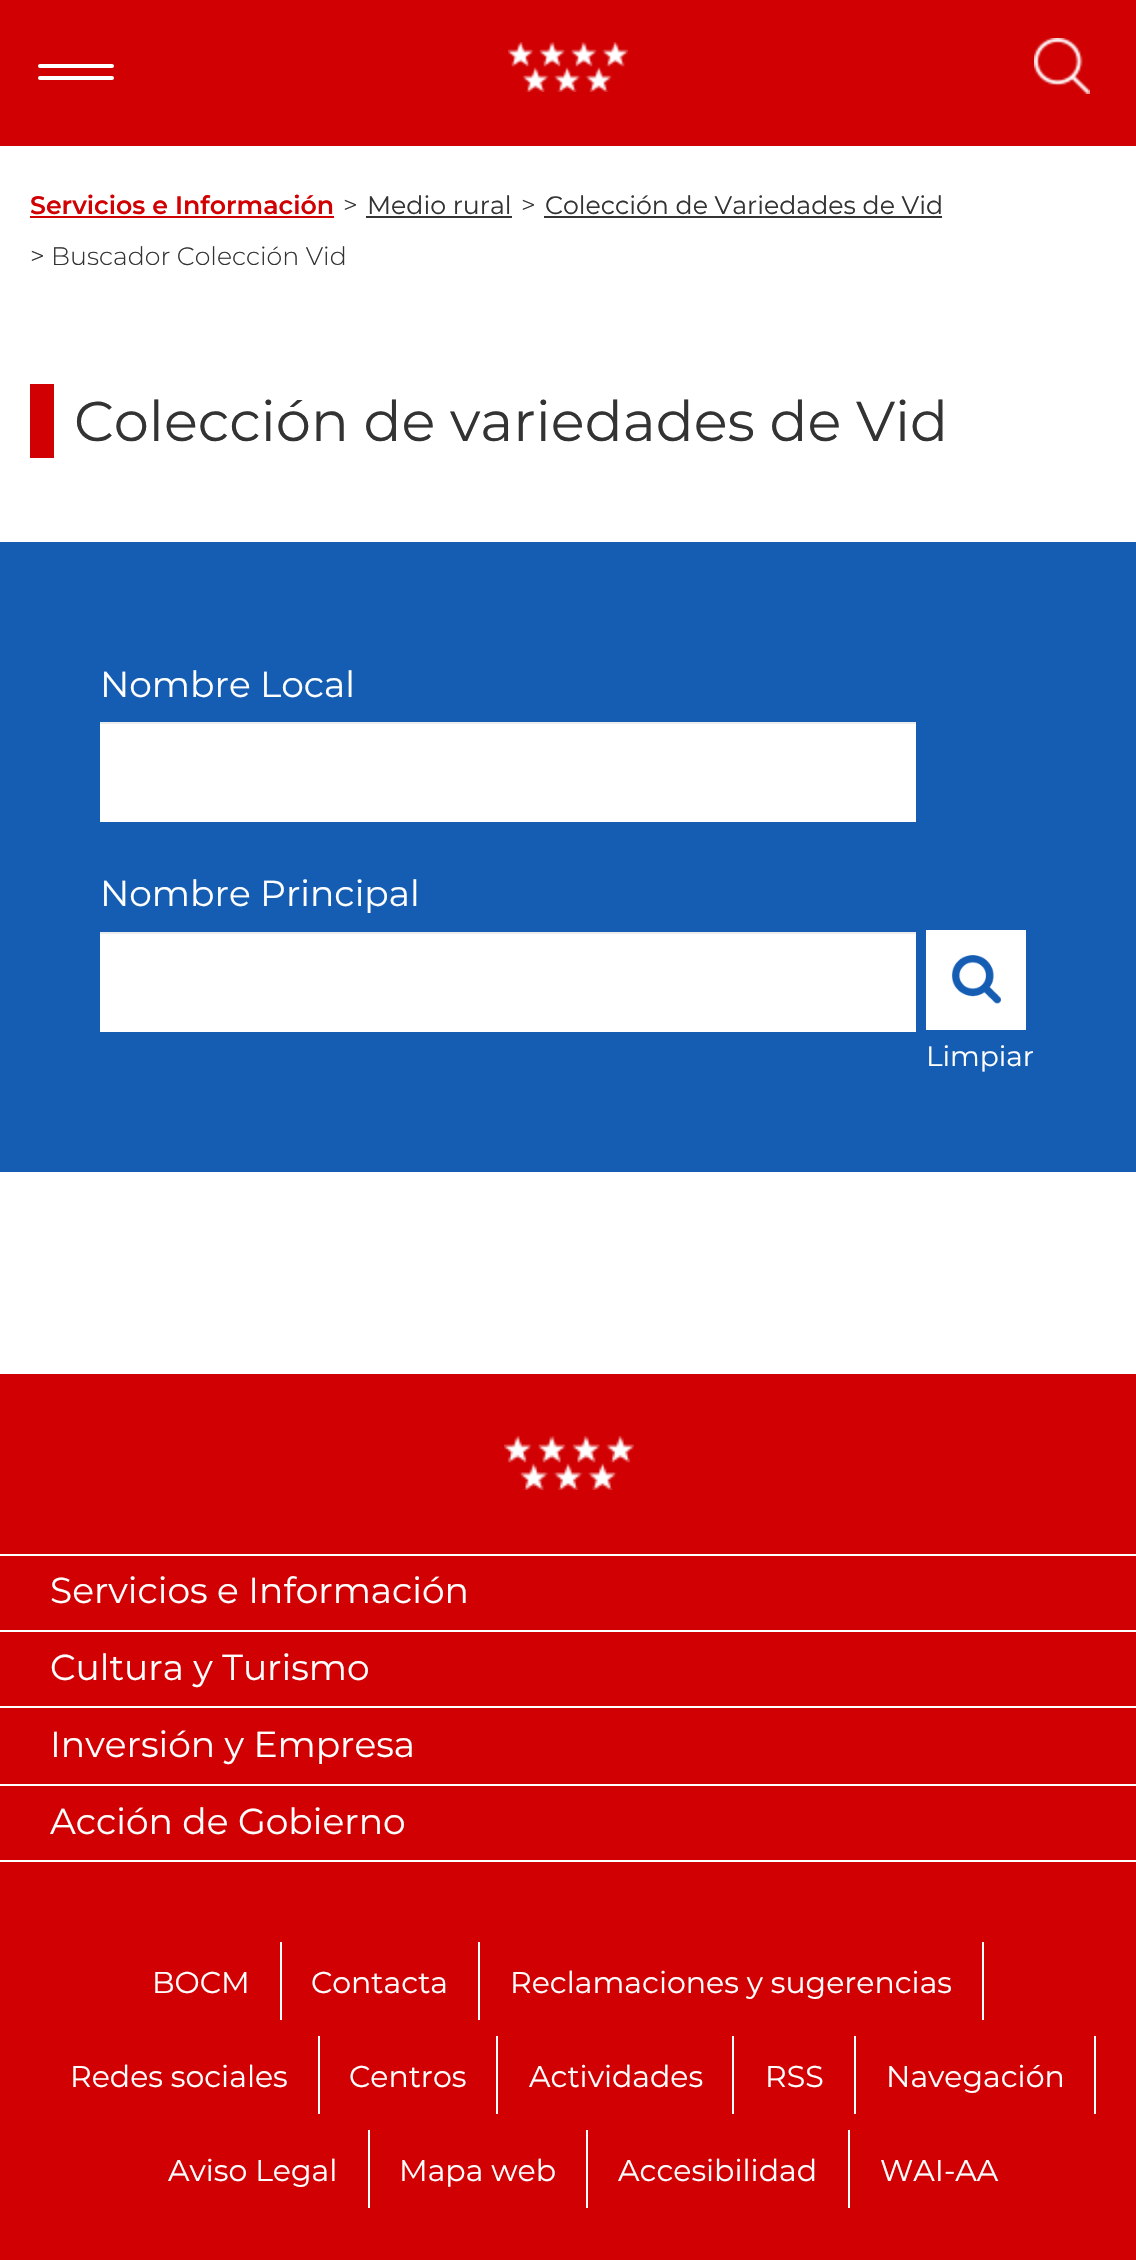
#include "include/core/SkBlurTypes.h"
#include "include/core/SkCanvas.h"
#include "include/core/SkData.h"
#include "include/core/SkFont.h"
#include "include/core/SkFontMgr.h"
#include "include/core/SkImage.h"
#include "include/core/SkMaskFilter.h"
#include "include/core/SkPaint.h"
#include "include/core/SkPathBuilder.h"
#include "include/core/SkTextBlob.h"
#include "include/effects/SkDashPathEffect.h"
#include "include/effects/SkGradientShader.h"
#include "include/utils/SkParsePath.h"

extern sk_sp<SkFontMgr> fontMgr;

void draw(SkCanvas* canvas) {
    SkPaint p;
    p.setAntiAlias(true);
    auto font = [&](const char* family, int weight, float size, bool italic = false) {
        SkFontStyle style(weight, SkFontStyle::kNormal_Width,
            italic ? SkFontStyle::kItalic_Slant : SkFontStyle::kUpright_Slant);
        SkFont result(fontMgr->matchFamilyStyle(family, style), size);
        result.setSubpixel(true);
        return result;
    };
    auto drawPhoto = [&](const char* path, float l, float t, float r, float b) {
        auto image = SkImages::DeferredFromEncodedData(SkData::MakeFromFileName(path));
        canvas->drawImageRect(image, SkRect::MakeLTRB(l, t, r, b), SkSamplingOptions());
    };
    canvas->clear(0xFFFFFFFF);
    p.setColor(0xFFD10002);
    canvas->drawRect(SkRect::MakeLTRB(0, 0, 1136, 146), p);
    p.setColor(0xFFFFFFFF);
    canvas->drawRoundRect(SkRect::MakeLTRB(38, 64, 114, 68), 2, 2, p);
    canvas->drawRoundRect(SkRect::MakeLTRB(38, 76, 114, 80), 2, 2, p);
    drawPhoto("media/1.png", 508, 42, 628, 92);
    drawPhoto("media/2.png", 1034, 38, 1090, 94);
    auto font1 = font("Montserrat", 600, 25.25f);
    p.setColor(0xFFD10002);
    canvas->drawString("Servicios e Información", 30, 214, font1, p);
    canvas->drawRect(SkRect::MakeLTRB(30, 216, 334, 218), p);
    auto font2 = font("Montserrat", 300, 26);
    p.setColor(0xFF333333);
    canvas->drawString(">", 343, 214, font2, p);
    auto font3 = font("Montserrat", 400, 25.25f);
    canvas->drawString("Medio rural", 367, 214, font3, p);
    canvas->drawRect(SkRect::MakeLTRB(366, 216, 512, 218), p);
    canvas->drawString(">", 521, 214, font2, p);
    canvas->drawString("Colección de Variedades de Vid", 545, 214, font3, p);
    canvas->drawRect(SkRect::MakeLTRB(544, 216, 942, 218), p);
    canvas->drawString(">", 30, 265, font2, p);
    auto font4 = font("Montserrat", 300, 25.25f);
    canvas->drawString("Buscador Colección Vid", 51, 265, font4, p);
    p.setColor(0xFFD10002);
    canvas->drawRect(SkRect::MakeLTRB(30, 384, 54, 458), p);
    auto font5 = font("Montserrat", 400, 56);
    p.setColor(0xFF333333);
    canvas->drawString("Colección de variedades de Vid", 74, 441, font5, p);
    p.setColor(0xFF145DB3);
    canvas->drawRect(SkRect::MakeLTRB(0, 542, 1136, 1172), p);
    auto font6 = font("Montserrat", 400, 36);
    p.setColor(0xFFFFFFFF);
    canvas->drawString("Nombre Local", 100, 697, font6, p);
    canvas->drawRect(SkRect::MakeLTRB(100, 724, 916, 822), p);
    p.setColor(0xFFECECEC);
    canvas->drawRect(SkRect::MakeLTRB(100, 722, 916, 724), p);
    p.setColor(0xFFFFFFFF);
    canvas->drawString("Nombre Principal", 100, 906, font6, p);
    canvas->drawRect(SkRect::MakeLTRB(100, 934, 916, 1032), p);
    p.setColor(0xFFECECEC);
    canvas->drawRect(SkRect::MakeLTRB(100, 932, 916, 934), p);
    drawPhoto("media/3.png", 926, 930, 1026, 1030);
    auto font7 = font("Montserrat", 400, 28);
    p.setColor(0xFFFFFFFF);
    canvas->drawString("Limpiar", 926, 1066, font7, p);
    p.setColor(0xFFD10002);
    canvas->drawRect(SkRect::MakeLTRB(0, 1374, 1136, 2260), p);
    drawPhoto("media/4.png", 504, 1436, 634, 1490);
    p.setColor(0xFFFFFFFF);
    canvas->drawRect(SkRect::MakeLTRB(0, 1554, 1136, 1556), p);
    canvas->drawRect(SkRect::MakeLTRB(0, 1630, 1136, 1632), p);
    canvas->drawString("Servicios e Información", 50, 1603, font6, p);
    canvas->drawRect(SkRect::MakeLTRB(0, 1706, 1136, 1708), p);
    canvas->drawString("Cultura y Turismo", 50, 1680, font6, p);
    canvas->drawRect(SkRect::MakeLTRB(0, 1784, 1136, 1786), p);
    canvas->drawString("Inversión y Empresa", 50, 1757, font6, p);
    canvas->drawRect(SkRect::MakeLTRB(0, 1860, 1136, 1862), p);
    canvas->drawString("Acción de Gobierno", 50, 1834, font6, p);
    canvas->drawRect(SkRect::MakeLTRB(280, 1942, 282, 2020), p);
    auto font8 = font("Montserrat", 400, 30);
    canvas->drawString("BOCM", 152, 1993, font8, p);
    canvas->drawRect(SkRect::MakeLTRB(478, 1942, 480, 2020), p);
    canvas->drawString("Contacta", 311, 1993, font8, p);
    canvas->drawRect(SkRect::MakeLTRB(982, 1942, 984, 2020), p);
    canvas->drawString("Reclamaciones y sugerencias", 510, 1993, font8, p);
    canvas->drawRect(SkRect::MakeLTRB(318, 2036, 320, 2114), p);
    canvas->drawString("Redes sociales", 70, 2087, font8, p);
    canvas->drawRect(SkRect::MakeLTRB(496, 2036, 498, 2114), p);
    canvas->drawString("Centros", 349, 2087, font8, p);
    canvas->drawRect(SkRect::MakeLTRB(732, 2036, 734, 2114), p);
    canvas->drawString("Actividades", 529, 2087, font8, p);
    canvas->drawRect(SkRect::MakeLTRB(854, 2036, 856, 2114), p);
    canvas->drawString("RSS", 765, 2087, font8, p);
    canvas->drawRect(SkRect::MakeLTRB(1094, 2036, 1096, 2114), p);
    canvas->drawString("Navegación", 886, 2087, font8, p);
    canvas->drawRect(SkRect::MakeLTRB(368, 2130, 370, 2208), p);
    canvas->drawString("Aviso Legal", 168, 2181, font8, p);
    canvas->drawRect(SkRect::MakeLTRB(586, 2130, 588, 2208), p);
    canvas->drawString("Mapa web", 399, 2181, font8, p);
    canvas->drawRect(SkRect::MakeLTRB(848, 2130, 850, 2208), p);
    canvas->drawString("Accesibilidad", 618, 2181, font8, p);
    canvas->drawString("WAI-AA", 880, 2181, font8, p);
}
